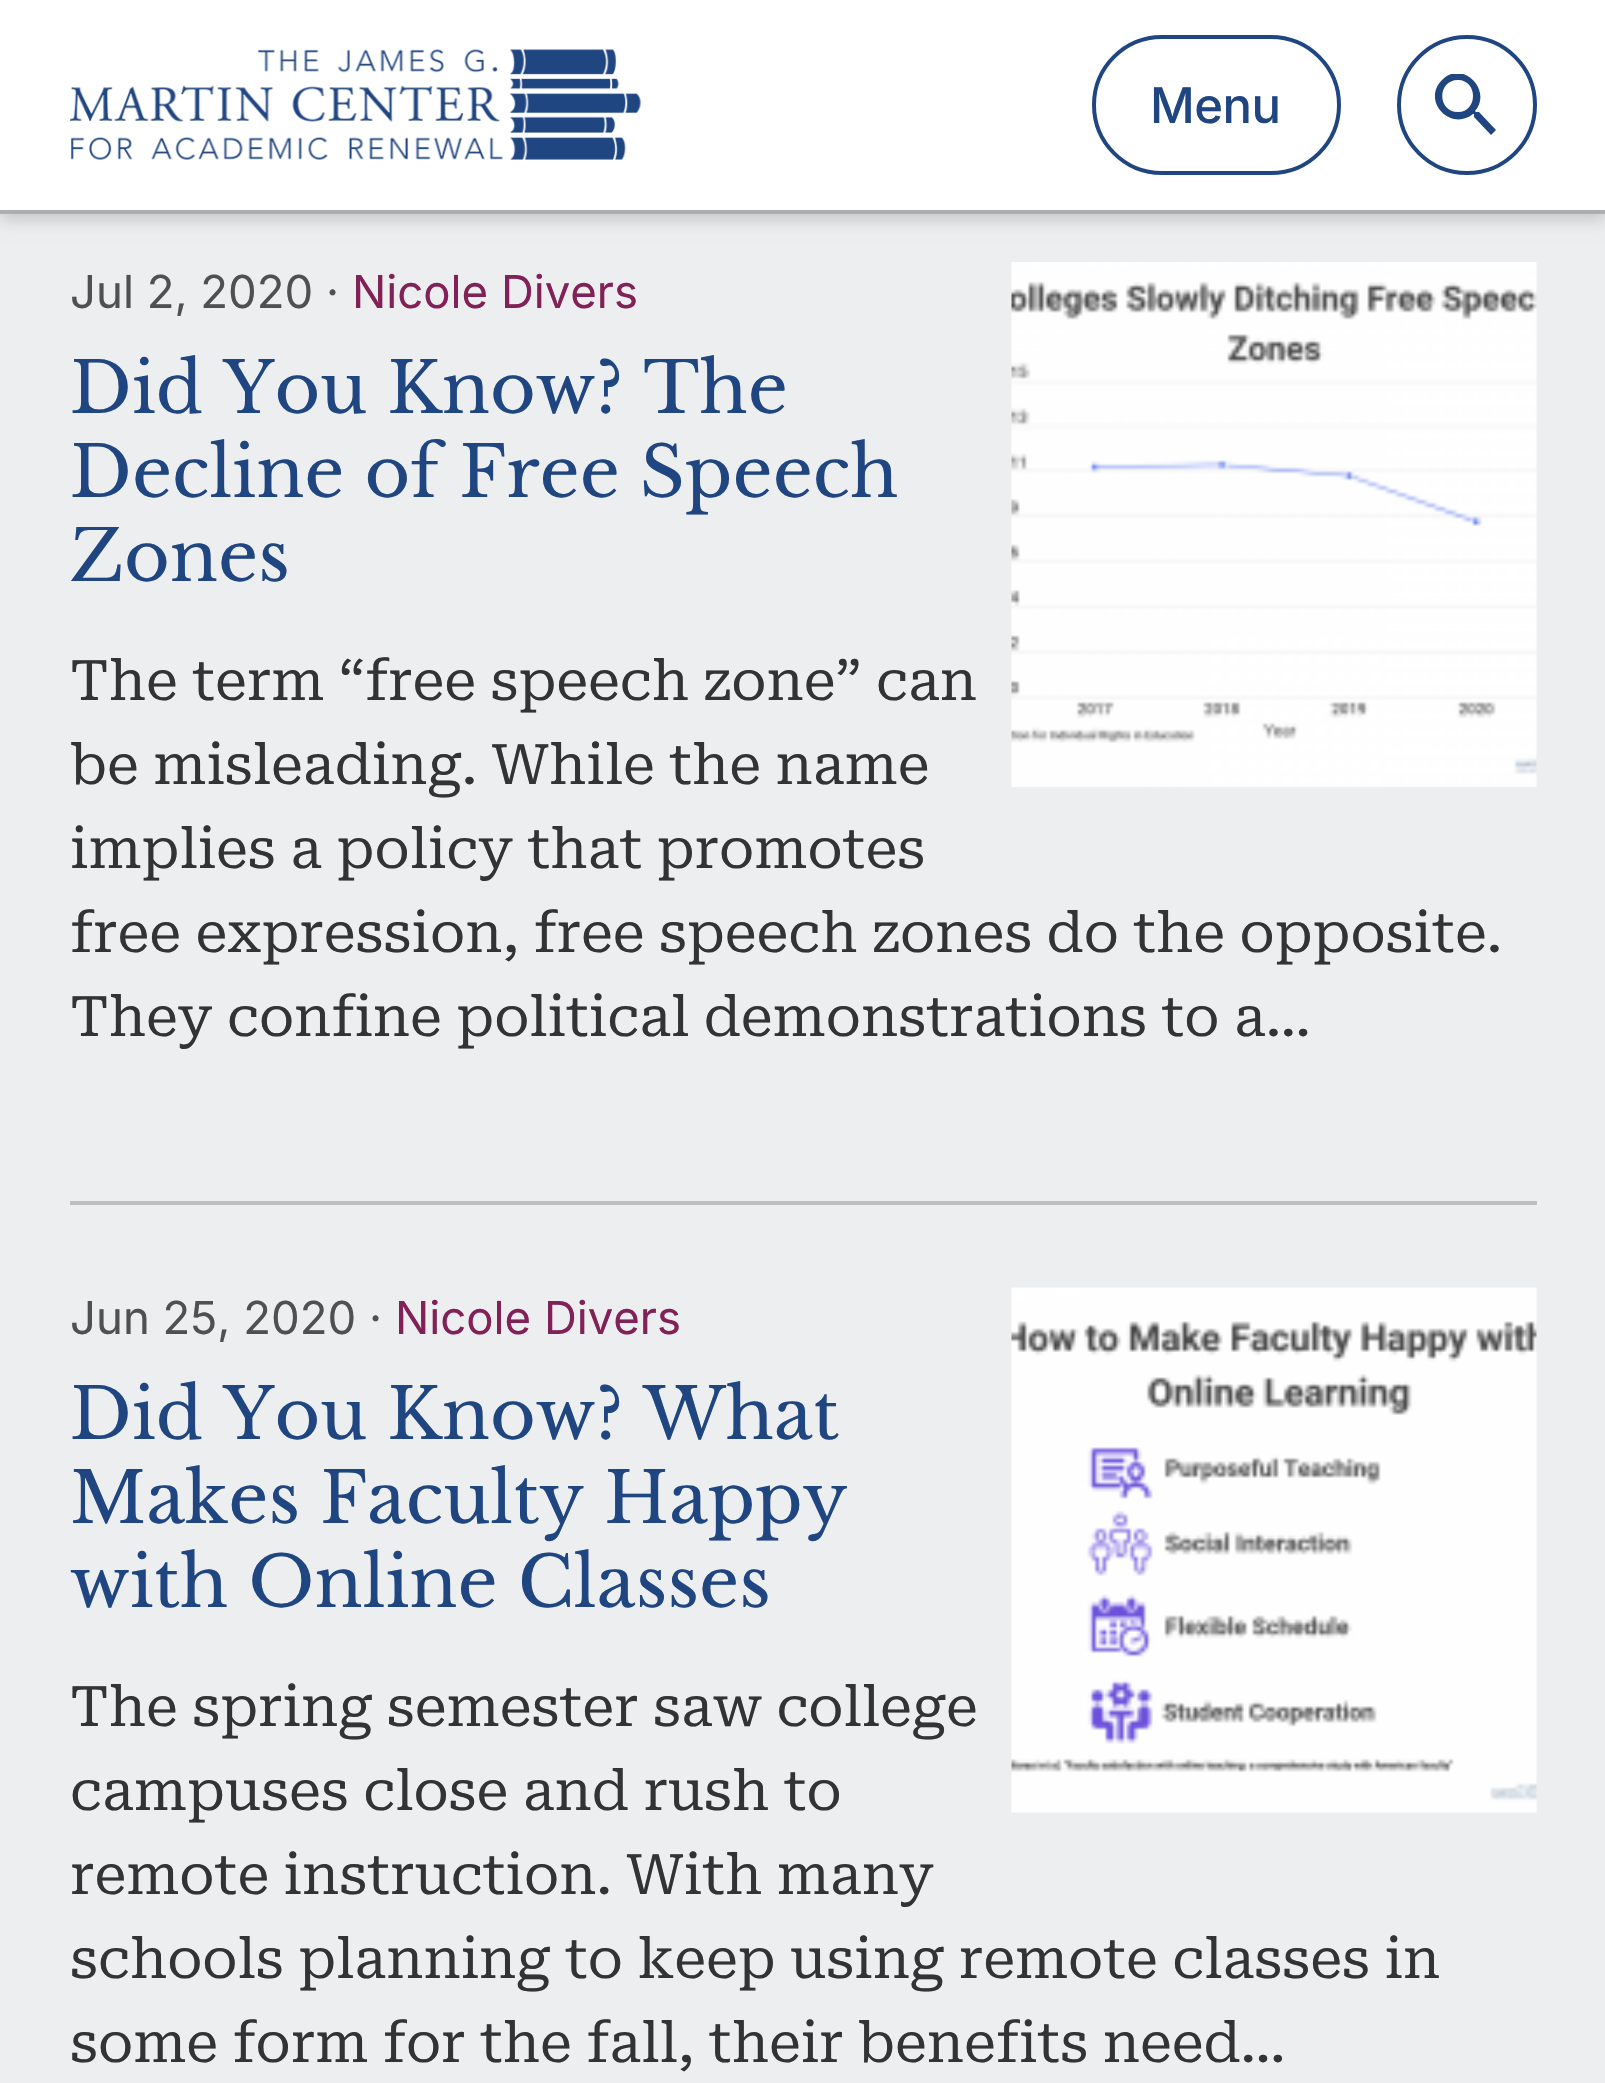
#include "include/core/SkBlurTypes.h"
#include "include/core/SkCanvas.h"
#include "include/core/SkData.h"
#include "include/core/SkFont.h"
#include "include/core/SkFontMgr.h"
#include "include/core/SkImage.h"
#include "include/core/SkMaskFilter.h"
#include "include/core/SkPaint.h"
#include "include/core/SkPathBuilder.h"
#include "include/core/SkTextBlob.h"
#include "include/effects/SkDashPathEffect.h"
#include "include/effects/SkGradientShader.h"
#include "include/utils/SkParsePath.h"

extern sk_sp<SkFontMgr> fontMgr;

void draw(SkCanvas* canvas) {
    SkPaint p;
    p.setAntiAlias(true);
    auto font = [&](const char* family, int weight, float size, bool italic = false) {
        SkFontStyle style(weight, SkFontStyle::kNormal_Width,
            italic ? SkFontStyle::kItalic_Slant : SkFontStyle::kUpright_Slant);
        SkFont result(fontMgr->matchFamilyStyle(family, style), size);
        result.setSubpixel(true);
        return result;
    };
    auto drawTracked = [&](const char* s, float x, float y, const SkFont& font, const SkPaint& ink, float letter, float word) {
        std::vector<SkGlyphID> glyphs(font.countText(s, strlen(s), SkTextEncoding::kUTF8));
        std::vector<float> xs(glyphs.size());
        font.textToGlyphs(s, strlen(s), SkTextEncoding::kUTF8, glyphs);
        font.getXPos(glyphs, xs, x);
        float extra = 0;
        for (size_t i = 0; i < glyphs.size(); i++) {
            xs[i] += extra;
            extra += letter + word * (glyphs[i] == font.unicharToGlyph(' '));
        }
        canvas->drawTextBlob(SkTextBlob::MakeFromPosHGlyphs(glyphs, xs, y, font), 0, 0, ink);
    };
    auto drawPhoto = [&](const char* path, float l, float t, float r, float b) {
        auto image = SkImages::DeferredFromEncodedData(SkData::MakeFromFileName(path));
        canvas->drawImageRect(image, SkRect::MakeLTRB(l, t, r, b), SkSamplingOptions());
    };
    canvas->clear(0xFFEDEEEF);
    p.setColor(0x26000000);
    p.setMaskFilter(SkMaskFilter::MakeBlur(kNormal_SkBlurStyle, 7));
    canvas->drawRect(SkRect::MakeLTRB(0, 7, 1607, 221), p);
    p.setMaskFilter(nullptr);
    p.setColor(0xFFFFFFFF);
    canvas->drawRect(SkRect::MakeLTRB(0, 0, 1605, 210), p);
    p.setColor(0xFFAEAEAE);
    canvas->drawRect(SkRect::MakeLTRB(0, 210, 1605, 214), p);
    drawPhoto("media/1.png", 70, 49, 641, 160);
    p.setStyle(SkPaint::kStroke_Style);
    p.setStrokeWidth(4);
    p.setColor(0xFF204682);
    canvas->drawRoundRect(SkRect::MakeLTRB(1094, 37, 1339, 173), 68, 68, p);
    auto font1 = font("Inter", 500, 49);
    p.setStyle(SkPaint::kFill_Style);
    drawTracked("Menu", 1150, 123, font1, p, -0.5f, 0);
    p.setStyle(SkPaint::kStroke_Style);
    canvas->drawCircle(1467, 105, 68, p);
    canvas->save();
    canvas->clipRect(SkRect::MakeLTRB(1435, 74, 1498, 137));
    p.setStyle(SkPaint::kFill_Style);
    canvas->drawPath(SkPathBuilder().moveTo(1479, 112).lineTo(1476, 112).lineTo(1475, 111).cubicTo(1493, 90, 1462, 59, 1442, 80).cubicTo(1421, 101, 1451, 132, 1473, 114).lineTo(1474, 114).lineTo(1474, 117).lineTo(1491, 135).lineTo(1496, 130).close().moveTo(1458, 112).cubicTo(1437, 112, 1437, 80, 1458, 80).cubicTo(1478, 80, 1478, 112, 1458, 112).close().detach(), p);
    canvas->restore();
    auto font2 = font("Inter", 400, 45.5f);
    p.setColor(0xFF505050);
    canvas->drawString("Jul 2, 2020 ·", 70, 308, font2, p);
    p.setColor(0xFF822157);
    canvas->drawString("Nicole Divers", 352, 308, font2, p);
    drawPhoto("media/2.png", 1011, 262, 1537, 787);
    auto font3 = font("Libre Baskerville", 400, 70);
    p.setColor(0xFF204682);
    {
        const struct { const char* s; float x, y; } items[] = {
            {"Did You Know? The", 70, 413},
            {"Decline of Free Speech", 70, 497},
            {"Zones", 70, 581},
        };
        for (auto [s, x, y] : items) {
            canvas->drawString(s, x, y, font3, p);
        }
    }
    auto font4 = font("Roboto Serif", 400, 56);
    p.setColor(0xFF333333);
    {
        const struct { const char* s; float x, y; } items[] = {
            {"The term “free speech zone” can", 70, 700},
            {"be misleading. While the name", 70, 784},
            {"implies a policy that promotes", 70, 868},
            {"free expression, free speech zones do the opposite.", 70, 952},
            {"They confine political demonstrations to a…", 70, 1036},
        };
        for (auto [s, x, y] : items) {
            canvas->drawString(s, x, y, font4, p);
        }
    }
    p.setColor(0xFFBEBEBE);
    canvas->drawRect(SkRect::MakeLTRB(70, 1201, 1537, 1205), p);
    p.setColor(0xFF505050);
    canvas->drawString("Jun 25, 2020 ·", 70, 1334, font2, p);
    p.setColor(0xFF822157);
    canvas->drawString("Nicole Divers", 395, 1334, font2, p);
    drawPhoto("media/3.png", 1011, 1287, 1537, 1813);
    p.setColor(0xFF204682);
    {
        const struct { const char* s; float x, y; } items[] = {
            {"Did You Know? What", 70, 1439},
            {"Makes Faculty Happy", 70, 1523},
            {"with Online Classes", 70, 1607},
        };
        for (auto [s, x, y] : items) {
            canvas->drawString(s, x, y, font3, p);
        }
    }
    p.setColor(0xFF333333);
    {
        const struct { const char* s; float x, y; } items[] = {
            {"The spring semester saw college", 70, 1726},
            {"campuses close and rush to", 70, 1810},
            {"remote instruction. With many", 70, 1894},
            {"schools planning to keep using remote classes in", 70, 1978},
            {"some form for the fall, their benefits need…", 70, 2062},
        };
        for (auto [s, x, y] : items) {
            canvas->drawString(s, x, y, font4, p);
        }
    }
}
